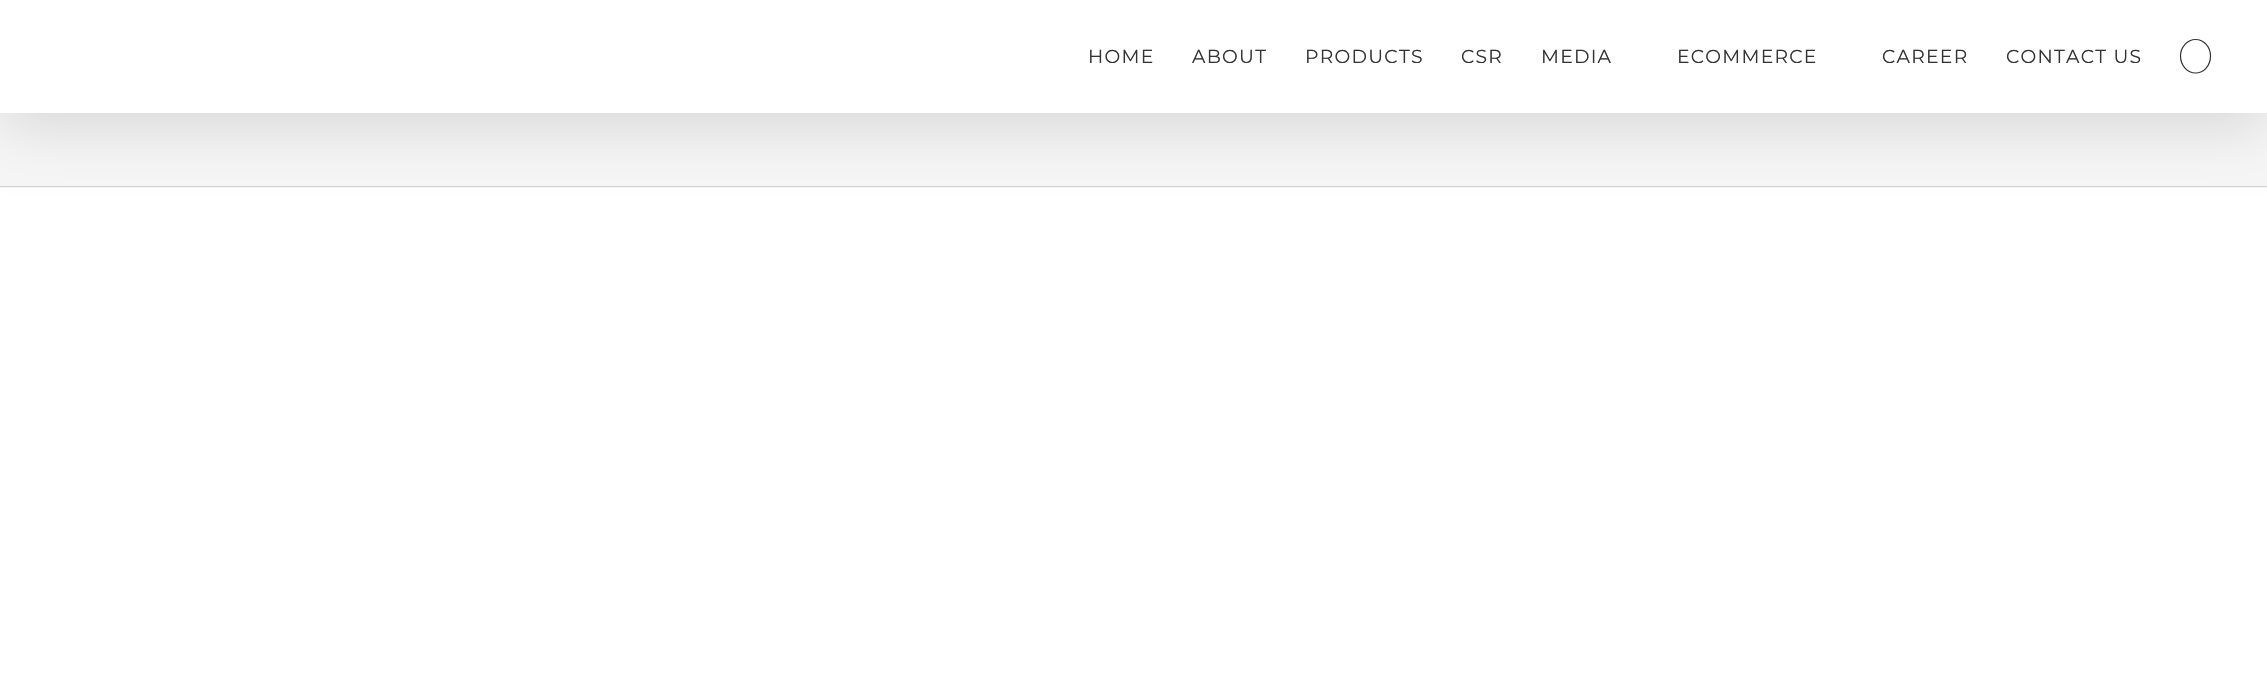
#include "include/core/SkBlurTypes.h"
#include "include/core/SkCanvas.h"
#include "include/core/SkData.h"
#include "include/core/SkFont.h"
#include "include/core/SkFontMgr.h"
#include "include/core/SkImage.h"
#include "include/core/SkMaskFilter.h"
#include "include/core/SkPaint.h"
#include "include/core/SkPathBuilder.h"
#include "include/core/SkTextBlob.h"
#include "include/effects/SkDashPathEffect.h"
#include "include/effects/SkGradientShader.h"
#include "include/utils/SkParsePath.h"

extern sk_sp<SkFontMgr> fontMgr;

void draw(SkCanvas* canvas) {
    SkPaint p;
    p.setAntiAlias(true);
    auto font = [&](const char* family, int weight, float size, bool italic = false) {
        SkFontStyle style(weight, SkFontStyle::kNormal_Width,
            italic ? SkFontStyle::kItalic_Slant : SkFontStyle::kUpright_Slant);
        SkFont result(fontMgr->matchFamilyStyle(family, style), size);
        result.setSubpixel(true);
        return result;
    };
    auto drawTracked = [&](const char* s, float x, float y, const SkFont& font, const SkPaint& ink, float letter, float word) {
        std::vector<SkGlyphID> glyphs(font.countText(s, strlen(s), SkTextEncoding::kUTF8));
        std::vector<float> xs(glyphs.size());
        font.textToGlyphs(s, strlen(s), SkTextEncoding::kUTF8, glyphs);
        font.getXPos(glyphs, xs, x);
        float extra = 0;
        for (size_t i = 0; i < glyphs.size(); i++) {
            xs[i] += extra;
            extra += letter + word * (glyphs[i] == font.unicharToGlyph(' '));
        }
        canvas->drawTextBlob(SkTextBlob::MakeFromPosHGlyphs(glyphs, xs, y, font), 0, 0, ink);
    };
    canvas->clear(0xFFFFFFFF);
    p.setColor(0xFFF6F6F6);
    canvas->drawRect(SkRect::MakeLTRB(0, 113, 2267, 188), p);
    p.setColor(0xFFD2D3D4);
    canvas->drawRect(SkRect::MakeLTRB(0, 186, 2267, 187), p);
    p.setColor(0x24000000);
    p.setMaskFilter(SkMaskFilter::MakeBlur(kNormal_SkBlurStyle, 31));
    canvas->drawRect(SkRect::MakeLTRB(3, 15, 2265, 123), p);
    p.setMaskFilter(nullptr);
    p.setColor(0xFFFFFFFF);
    canvas->drawRect(SkRect::MakeLTRB(0, 0, 2267, 113), p);
    auto font1 = font("Montserrat", 100, 18.75f);
    p.setColor(0xFF333333);
    {
        const struct { const char* s; float x, y; } items[] = {
            {"HOME", 1088, 63},
            {"ABOUT", 1192, 63},
            {"PRODUCTS", 1305, 63},
            {"CSR", 1461, 63},
            {"MEDIA", 1541, 63},
            {"ECOMMERCE", 1677, 63},
            {"CAREER", 1882, 63},
            {"CONTACT US", 2006, 63},
        };
        for (auto [s, x, y] : items) {
            drawTracked(s, x, y, font1, p, 1.25f, 0);
        }
    }
    p.setStyle(SkPaint::kStroke_Style);
    p.setStrokeWidth(1.2f);
    canvas->drawPath(SkPathBuilder().moveTo(2195.5f, 39.5f).cubicTo(2204, 39.5f, 2210.5f, 47, 2210.5f, 56).cubicTo(2210.5f, 65.5f, 2204, 73, 2195.5f, 73).cubicTo(2187.5f, 73, 2180.5f, 65.5f, 2180.5f, 56).cubicTo(2180.5f, 47, 2187.5f, 39.5f, 2195.5f, 39.5f).close().detach(), p);
}
